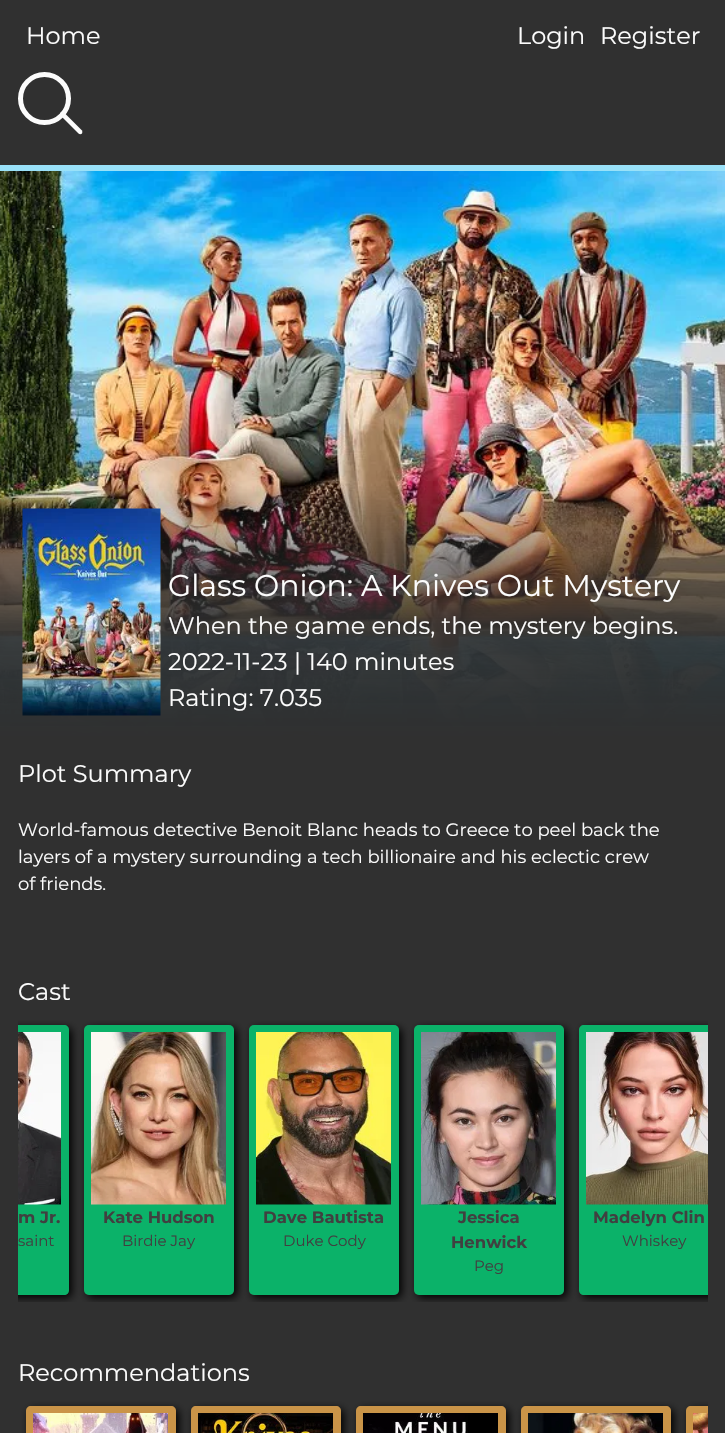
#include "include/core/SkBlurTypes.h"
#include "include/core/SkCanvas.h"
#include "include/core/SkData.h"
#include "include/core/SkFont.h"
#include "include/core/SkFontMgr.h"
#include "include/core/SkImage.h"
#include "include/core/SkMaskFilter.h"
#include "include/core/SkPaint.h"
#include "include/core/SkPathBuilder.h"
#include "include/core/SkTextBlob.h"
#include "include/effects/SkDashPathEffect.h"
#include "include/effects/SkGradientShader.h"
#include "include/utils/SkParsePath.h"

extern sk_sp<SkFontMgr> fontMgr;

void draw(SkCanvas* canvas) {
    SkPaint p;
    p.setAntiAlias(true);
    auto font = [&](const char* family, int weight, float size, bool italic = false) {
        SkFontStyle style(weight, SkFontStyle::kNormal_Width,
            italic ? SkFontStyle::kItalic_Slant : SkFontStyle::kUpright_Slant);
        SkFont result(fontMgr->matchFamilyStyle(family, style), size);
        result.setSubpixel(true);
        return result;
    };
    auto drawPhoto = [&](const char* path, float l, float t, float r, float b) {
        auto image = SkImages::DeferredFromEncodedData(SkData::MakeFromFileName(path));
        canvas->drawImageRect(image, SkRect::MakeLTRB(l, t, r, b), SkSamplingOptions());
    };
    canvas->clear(0xFF303030);
    auto font1 = font("Montserrat", 400, 24);
    p.setColor(0xFFFCFCFC);
    {
        const struct { const char* s; float x, y; } items[] = {
            {"Home", 26, 44},
            {"Login", 517, 44},
            {"Register", 600, 44},
        };
        for (auto [s, x, y] : items) {
            canvas->drawString(s, x, y, font1, p);
        }
    }
    p.setStyle(SkPaint::kStroke_Style);
    p.setStrokeWidth(5);
    canvas->drawCircle(44.5f, 98.5f, 24, p);
    p.setStyle(SkPaint::kFill_Style);
    canvas->drawPath(SkPathBuilder().moveTo(60.5f, 112.5f).cubicTo(61.5f, 111.5f, 63, 111.5f, 64, 112.5f).lineTo(82, 130.5f).cubicTo(82.5f, 131.5f, 82.5f, 132.5f, 82, 133.5f).cubicTo(81, 134.5f, 79.5f, 134.5f, 78.5f, 133.5f).lineTo(60.5f, 115.5f).cubicTo(60, 114.5f, 60, 113.5f, 60.5f, 112.5f).close().detach(), p);
    drawPhoto("media/1.png", 0, 171, 725, 738);
    p.setColor(0xFF99E1F8);
    canvas->drawRect(SkRect::MakeLTRB(0, 165, 725, 171), p);
    drawPhoto("media/2.png", 22, 508, 161, 716);
    auto font2 = font("Montserrat", 400, 30);
    p.setColor(0xFFFCFCFC);
    canvas->drawString("Glass Onion: A Knives Out Mystery", 168, 596, font2, p);
    {
        const struct { const char* s; float x, y; } items[] = {
            {"When the game ends, the mystery begins.", 168, 634},
            {"2022-11-23 | 140 minutes", 168, 670},
            {"Rating: 7.035", 168, 706},
            {"Plot Summary", 18, 782},
        };
        for (auto [s, x, y] : items) {
            canvas->drawString(s, x, y, font1, p);
        }
    }
    auto font3 = font("Montserrat", 400, 18);
    {
        const struct { const char* s; float x, y; } items[] = {
            {"World-famous detective Benoit Blanc heads to Greece to peel back the", 18, 836},
            {"layers of a mystery surrounding a tech billionaire and his eclectic crew", 18, 863},
            {"of friends.", 18, 890},
        };
        for (auto [s, x, y] : items) {
            canvas->drawString(s, x, y, font3, p);
        }
    }
    canvas->drawString("Cast", 18, 1000, font1, p);
    canvas->save();
    canvas->clipRect(SkRect::MakeLTRB(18, 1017, 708, 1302));
    canvas->clipPath(SkPathBuilder(SkPathFillType::kEvenOdd).moveTo(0, 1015).lineTo(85, 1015).lineTo(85, 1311).lineTo(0, 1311).close().moveTo(-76, 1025).lineTo(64, 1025).cubicTo(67, 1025, 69, 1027, 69, 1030).lineTo(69, 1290).cubicTo(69, 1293, 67, 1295, 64, 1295).lineTo(-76, 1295).cubicTo(-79, 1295, -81, 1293, -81, 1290).lineTo(-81, 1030).cubicTo(-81, 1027, -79, 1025, -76, 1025).close().detach(), true);
    p.setColor(0xFF000000);
    p.setMaskFilter(SkMaskFilter::MakeBlur(kNormal_SkBlurStyle, 4));
    canvas->drawRoundRect(SkRect::MakeLTRB(-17, 1028, 72, 1298), 5, 5, p);
    p.setMaskFilter(nullptr);
    canvas->restore();
    p.setColor(0xCC01D277);
    canvas->drawPath(SkPathBuilder().moveTo(18, 1025).lineTo(64, 1025).cubicTo(67, 1025, 69, 1027, 69, 1030).lineTo(69, 1290).cubicTo(69, 1293, 67, 1295, 64, 1295).lineTo(18, 1295).close().detach(), p);
    drawPhoto("media/3.png", 18, 1032, 61, 1205);
    auto font4 = font("Montserrat", 700, 16.5f);
    p.setColor(0xFF404040);
    canvas->drawString("m Jr.", 18, 1223, font4, p);
    auto font5 = font("Montserrat", 400, 15);
    canvas->drawString("saint", 18, 1246, font5, p);
    canvas->save();
    canvas->clipRect(SkRect::MakeLTRB(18, 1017, 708, 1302));
    canvas->clipPath(SkPathBuilder(SkPathFillType::kEvenOdd).moveTo(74, 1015).lineTo(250, 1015).lineTo(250, 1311).lineTo(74, 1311).close().moveTo(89, 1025).lineTo(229, 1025).cubicTo(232, 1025, 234, 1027, 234, 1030).lineTo(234, 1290).cubicTo(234, 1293, 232, 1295, 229, 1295).lineTo(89, 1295).cubicTo(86, 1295, 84, 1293, 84, 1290).lineTo(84, 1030).cubicTo(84, 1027, 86, 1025, 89, 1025).close().detach(), true);
    p.setColor(0xFF000000);
    p.setMaskFilter(SkMaskFilter::MakeBlur(kNormal_SkBlurStyle, 4));
    canvas->drawRoundRect(SkRect::MakeLTRB(87, 1028, 237, 1298), 5, 5, p);
    p.setMaskFilter(nullptr);
    canvas->restore();
    p.setColor(0xCC01D277);
    canvas->drawRoundRect(SkRect::MakeLTRB(84, 1025, 234, 1295), 5, 5, p);
    drawPhoto("media/4.png", 91, 1032, 226, 1205);
    p.setColor(0xFF404040);
    canvas->drawString("Kate Hudson", 103, 1223, font4, p);
    canvas->drawString("Birdie Jay", 122, 1246, font5, p);
    canvas->save();
    canvas->clipRect(SkRect::MakeLTRB(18, 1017, 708, 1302));
    canvas->clipPath(SkPathBuilder(SkPathFillType::kEvenOdd).moveTo(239, 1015).lineTo(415, 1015).lineTo(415, 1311).lineTo(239, 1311).close().moveTo(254, 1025).lineTo(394, 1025).cubicTo(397, 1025, 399, 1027, 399, 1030).lineTo(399, 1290).cubicTo(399, 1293, 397, 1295, 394, 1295).lineTo(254, 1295).cubicTo(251, 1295, 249, 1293, 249, 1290).lineTo(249, 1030).cubicTo(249, 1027, 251, 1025, 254, 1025).close().detach(), true);
    p.setColor(0xFF000000);
    p.setMaskFilter(SkMaskFilter::MakeBlur(kNormal_SkBlurStyle, 4));
    canvas->drawRoundRect(SkRect::MakeLTRB(252, 1028, 402, 1298), 5, 5, p);
    p.setMaskFilter(nullptr);
    canvas->restore();
    p.setColor(0xCC01D277);
    canvas->drawRoundRect(SkRect::MakeLTRB(249, 1025, 399, 1295), 5, 5, p);
    drawPhoto("media/5.png", 256, 1032, 391, 1205);
    p.setColor(0xFF404040);
    canvas->drawString("Dave Bautista", 263, 1223, font4, p);
    canvas->drawString("Duke Cody", 283, 1246, font5, p);
    canvas->save();
    canvas->clipRect(SkRect::MakeLTRB(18, 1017, 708, 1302));
    canvas->clipPath(SkPathBuilder(SkPathFillType::kEvenOdd).moveTo(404, 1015).lineTo(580, 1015).lineTo(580, 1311).lineTo(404, 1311).close().moveTo(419, 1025).lineTo(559, 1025).cubicTo(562, 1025, 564, 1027, 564, 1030).lineTo(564, 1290).cubicTo(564, 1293, 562, 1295, 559, 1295).lineTo(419, 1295).cubicTo(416, 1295, 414, 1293, 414, 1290).lineTo(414, 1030).cubicTo(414, 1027, 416, 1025, 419, 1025).close().detach(), true);
    p.setColor(0xFF000000);
    p.setMaskFilter(SkMaskFilter::MakeBlur(kNormal_SkBlurStyle, 4));
    canvas->drawRoundRect(SkRect::MakeLTRB(417, 1028, 567, 1298), 5, 5, p);
    p.setMaskFilter(nullptr);
    canvas->restore();
    p.setColor(0xCC01D277);
    canvas->drawRoundRect(SkRect::MakeLTRB(414, 1025, 564, 1295), 5, 5, p);
    drawPhoto("media/6.png", 421, 1032, 556, 1205);
    p.setColor(0xFF404040);
    canvas->drawString("Jessica", 458, 1223, font4, p);
    canvas->drawString("Henwick", 451, 1248, font4, p);
    canvas->drawString("Peg", 474, 1271, font5, p);
    canvas->save();
    canvas->clipRect(SkRect::MakeLTRB(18, 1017, 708, 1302));
    canvas->clipPath(SkPathBuilder(SkPathFillType::kEvenOdd).moveTo(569, 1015).lineTo(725, 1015).lineTo(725, 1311).lineTo(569, 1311).close().moveTo(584, 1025).lineTo(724, 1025).cubicTo(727, 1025, 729, 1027, 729, 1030).lineTo(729, 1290).cubicTo(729, 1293, 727, 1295, 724, 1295).lineTo(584, 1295).cubicTo(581, 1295, 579, 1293, 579, 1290).lineTo(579, 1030).cubicTo(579, 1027, 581, 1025, 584, 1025).close().detach(), true);
    p.setColor(0xFF000000);
    p.setMaskFilter(SkMaskFilter::MakeBlur(kNormal_SkBlurStyle, 4));
    canvas->drawRoundRect(SkRect::MakeLTRB(582, 1028, 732, 1298), 5, 5, p);
    p.setMaskFilter(nullptr);
    canvas->restore();
    p.setColor(0xCC01D277);
    canvas->drawPath(SkPathBuilder().moveTo(584, 1025).lineTo(708, 1025).lineTo(708, 1295).lineTo(584, 1295).cubicTo(581, 1295, 579, 1293, 579, 1290).lineTo(579, 1030).cubicTo(579, 1027, 581, 1025, 584, 1025).close().detach(), p);
    drawPhoto("media/7.png", 586, 1032, 708, 1205);
    p.setColor(0xFF404040);
    canvas->drawString("Madelyn Clin", 593, 1223, font4, p);
    canvas->drawString("Whiskey", 622, 1246, font5, p);
    p.setColor(0xFFFCFCFC);
    canvas->drawString("Recommendations", 18, 1381, font1, p);
    canvas->save();
    canvas->clipPath(SkPathBuilder(SkPathFillType::kEvenOdd).moveTo(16, 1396).lineTo(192, 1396).lineTo(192, 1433).lineTo(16, 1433).close().moveTo(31, 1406).lineTo(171, 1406).cubicTo(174, 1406, 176, 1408, 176, 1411).lineTo(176, 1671).cubicTo(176, 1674, 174, 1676, 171, 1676).lineTo(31, 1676).cubicTo(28, 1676, 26, 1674, 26, 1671).lineTo(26, 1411).cubicTo(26, 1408, 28, 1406, 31, 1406).close().detach(), true);
    p.setColor(0xFF000000);
    p.setMaskFilter(SkMaskFilter::MakeBlur(kNormal_SkBlurStyle, 4));
    canvas->drawRoundRect(SkRect::MakeLTRB(29, 1409, 179, 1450), 5, 5, p);
    p.setMaskFilter(nullptr);
    canvas->restore();
    p.setColor(0xCCF0AD4E);
    canvas->drawPath(SkPathBuilder().moveTo(31, 1406).lineTo(171, 1406).cubicTo(174, 1406, 176, 1408, 176, 1411).lineTo(176, 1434).lineTo(26, 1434).lineTo(26, 1411).cubicTo(26, 1408, 28, 1406, 31, 1406).close().detach(), p);
    drawPhoto("media/8.png", 33, 1413, 168, 1433);
    canvas->save();
    canvas->clipPath(SkPathBuilder(SkPathFillType::kEvenOdd).moveTo(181, 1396).lineTo(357, 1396).lineTo(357, 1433).lineTo(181, 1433).close().moveTo(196, 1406).lineTo(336, 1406).cubicTo(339, 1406, 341, 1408, 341, 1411).lineTo(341, 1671).cubicTo(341, 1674, 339, 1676, 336, 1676).lineTo(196, 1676).cubicTo(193, 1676, 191, 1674, 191, 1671).lineTo(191, 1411).cubicTo(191, 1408, 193, 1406, 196, 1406).close().detach(), true);
    p.setColor(0xFF000000);
    p.setMaskFilter(SkMaskFilter::MakeBlur(kNormal_SkBlurStyle, 4));
    canvas->drawRoundRect(SkRect::MakeLTRB(194, 1409, 344, 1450), 5, 5, p);
    p.setMaskFilter(nullptr);
    canvas->restore();
    p.setColor(0xCCF0AD4E);
    canvas->drawPath(SkPathBuilder().moveTo(196, 1406).lineTo(336, 1406).cubicTo(339, 1406, 341, 1408, 341, 1411).lineTo(341, 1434).lineTo(191, 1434).lineTo(191, 1411).cubicTo(191, 1408, 193, 1406, 196, 1406).close().detach(), p);
    drawPhoto("media/9.png", 198, 1413, 333, 1433);
    canvas->save();
    canvas->clipPath(SkPathBuilder(SkPathFillType::kEvenOdd).moveTo(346, 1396).lineTo(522, 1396).lineTo(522, 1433).lineTo(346, 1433).close().moveTo(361, 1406).lineTo(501, 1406).cubicTo(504, 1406, 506, 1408, 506, 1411).lineTo(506, 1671).cubicTo(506, 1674, 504, 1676, 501, 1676).lineTo(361, 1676).cubicTo(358, 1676, 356, 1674, 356, 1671).lineTo(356, 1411).cubicTo(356, 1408, 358, 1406, 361, 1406).close().detach(), true);
    p.setColor(0xFF000000);
    p.setMaskFilter(SkMaskFilter::MakeBlur(kNormal_SkBlurStyle, 4));
    canvas->drawRoundRect(SkRect::MakeLTRB(359, 1409, 509, 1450), 5, 5, p);
    p.setMaskFilter(nullptr);
    canvas->restore();
    p.setColor(0xCCF0AD4E);
    canvas->drawPath(SkPathBuilder().moveTo(361, 1406).lineTo(501, 1406).cubicTo(504, 1406, 506, 1408, 506, 1411).lineTo(506, 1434).lineTo(356, 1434).lineTo(356, 1411).cubicTo(356, 1408, 358, 1406, 361, 1406).close().detach(), p);
    drawPhoto("media/10.png", 363, 1413, 498, 1433);
    canvas->save();
    canvas->clipPath(SkPathBuilder(SkPathFillType::kEvenOdd).moveTo(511, 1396).lineTo(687, 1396).lineTo(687, 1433).lineTo(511, 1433).close().moveTo(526, 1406).lineTo(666, 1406).cubicTo(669, 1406, 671, 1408, 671, 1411).lineTo(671, 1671).cubicTo(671, 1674, 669, 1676, 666, 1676).lineTo(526, 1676).cubicTo(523, 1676, 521, 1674, 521, 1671).lineTo(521, 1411).cubicTo(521, 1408, 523, 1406, 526, 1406).close().detach(), true);
    p.setColor(0xFF000000);
    p.setMaskFilter(SkMaskFilter::MakeBlur(kNormal_SkBlurStyle, 4));
    canvas->drawRoundRect(SkRect::MakeLTRB(524, 1409, 674, 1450), 5, 5, p);
    p.setMaskFilter(nullptr);
    canvas->restore();
    p.setColor(0xCCF0AD4E);
    canvas->drawPath(SkPathBuilder().moveTo(526, 1406).lineTo(666, 1406).cubicTo(669, 1406, 671, 1408, 671, 1411).lineTo(671, 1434).lineTo(521, 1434).lineTo(521, 1411).cubicTo(521, 1408, 523, 1406, 526, 1406).close().detach(), p);
    drawPhoto("media/11.png", 528, 1413, 663, 1433);
    canvas->save();
    canvas->clipRect(SkRect::MakeLTRB(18, 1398, 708, 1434));
    p.setColor(0xFF000000);
    p.setMaskFilter(SkMaskFilter::MakeBlur(kNormal_SkBlurStyle, 4));
    canvas->drawRoundRect(SkRect::MakeLTRB(689, 1409, 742, 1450), 5, 5, p);
    p.setMaskFilter(nullptr);
    canvas->restore();
    p.setColor(0xFFCA9448);
    canvas->drawPath(SkPathBuilder().moveTo(691, 1406).lineTo(708, 1406).lineTo(708, 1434).lineTo(686, 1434).lineTo(686, 1411).cubicTo(686, 1408, 688, 1406, 691, 1406).close().detach(), p);
    drawPhoto("media/12.png", 693, 1413, 708, 1433);
}
